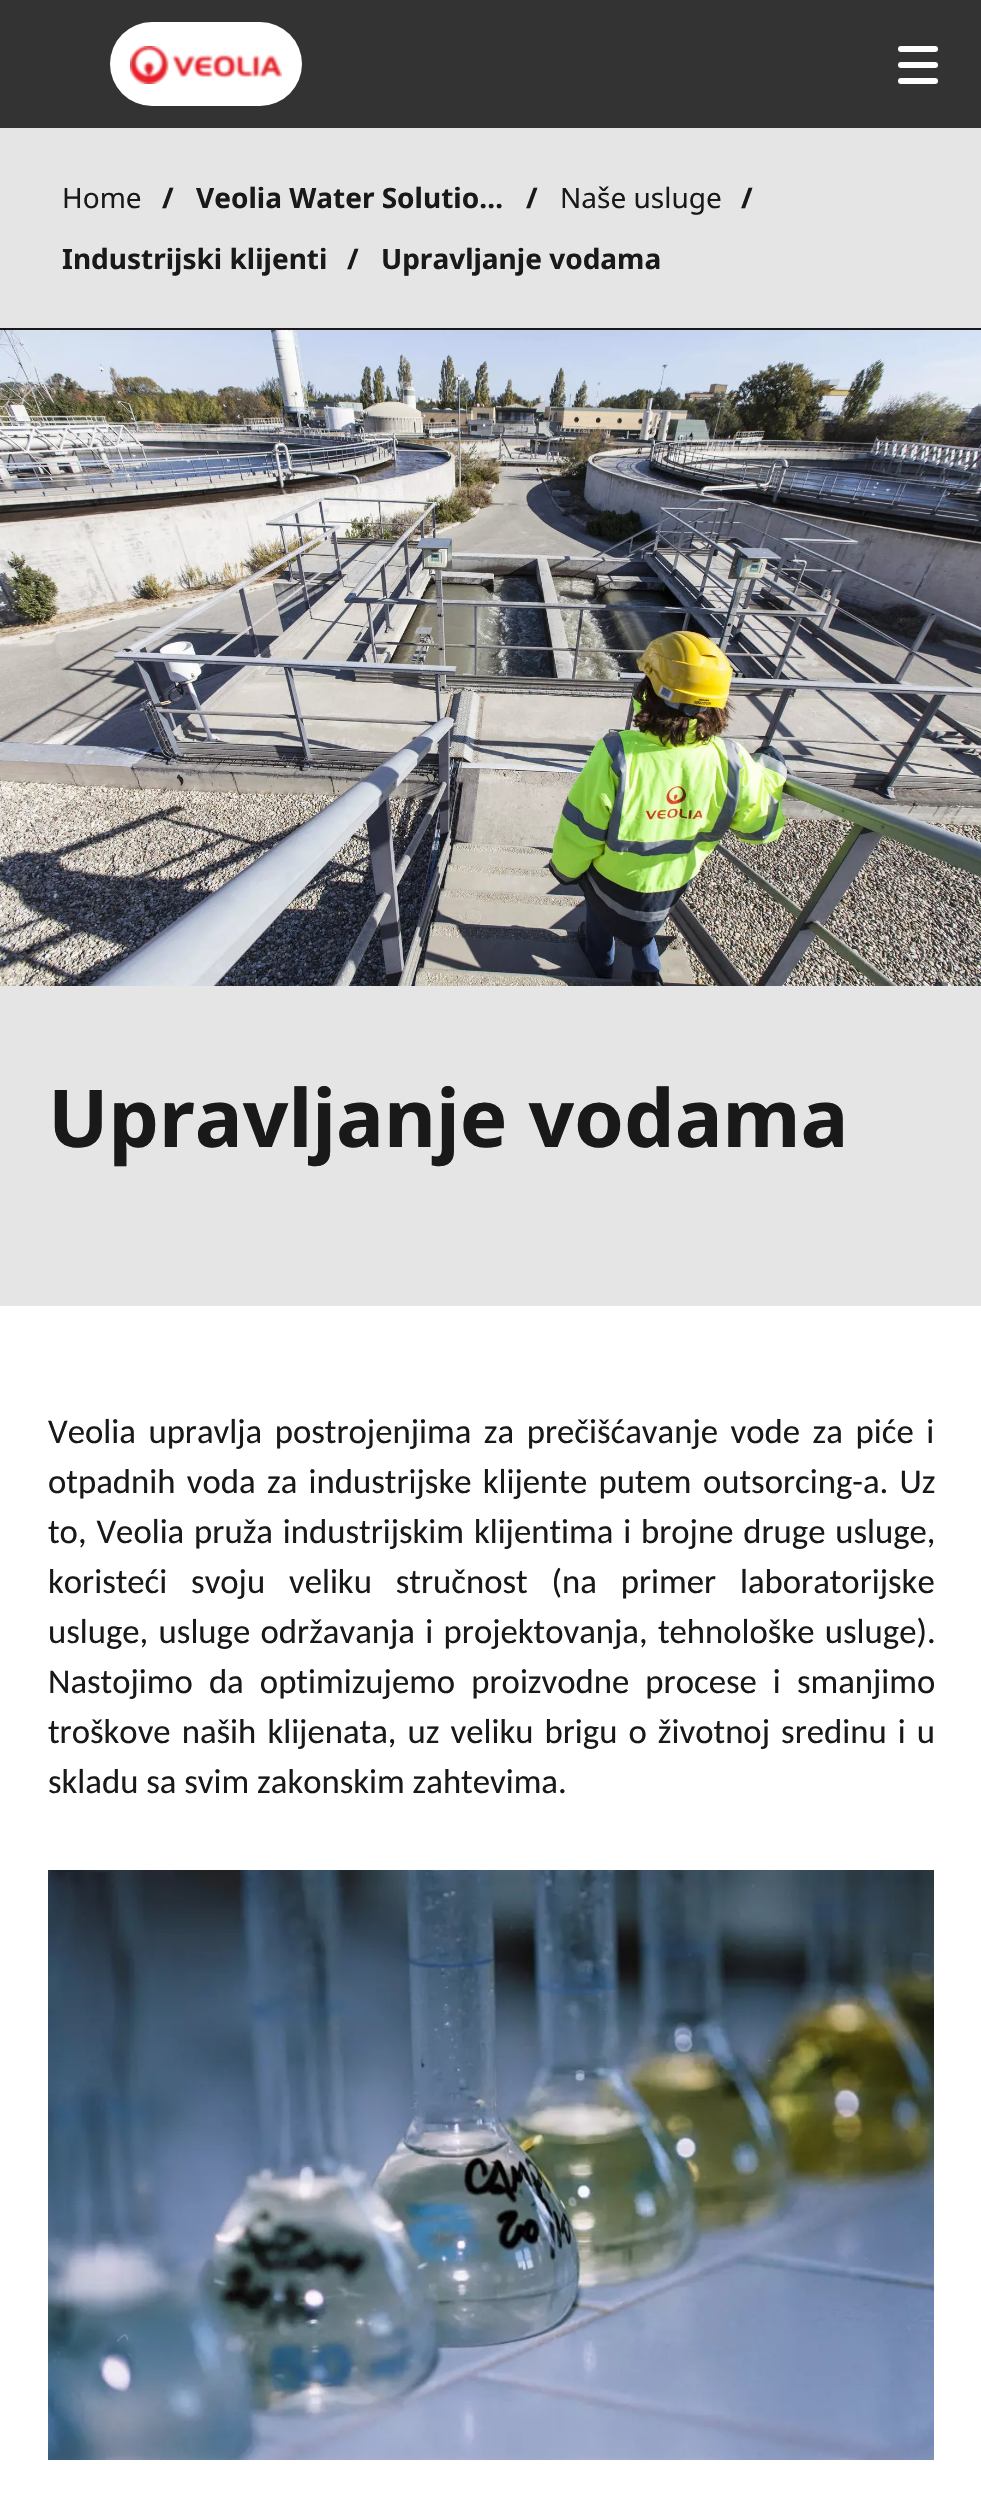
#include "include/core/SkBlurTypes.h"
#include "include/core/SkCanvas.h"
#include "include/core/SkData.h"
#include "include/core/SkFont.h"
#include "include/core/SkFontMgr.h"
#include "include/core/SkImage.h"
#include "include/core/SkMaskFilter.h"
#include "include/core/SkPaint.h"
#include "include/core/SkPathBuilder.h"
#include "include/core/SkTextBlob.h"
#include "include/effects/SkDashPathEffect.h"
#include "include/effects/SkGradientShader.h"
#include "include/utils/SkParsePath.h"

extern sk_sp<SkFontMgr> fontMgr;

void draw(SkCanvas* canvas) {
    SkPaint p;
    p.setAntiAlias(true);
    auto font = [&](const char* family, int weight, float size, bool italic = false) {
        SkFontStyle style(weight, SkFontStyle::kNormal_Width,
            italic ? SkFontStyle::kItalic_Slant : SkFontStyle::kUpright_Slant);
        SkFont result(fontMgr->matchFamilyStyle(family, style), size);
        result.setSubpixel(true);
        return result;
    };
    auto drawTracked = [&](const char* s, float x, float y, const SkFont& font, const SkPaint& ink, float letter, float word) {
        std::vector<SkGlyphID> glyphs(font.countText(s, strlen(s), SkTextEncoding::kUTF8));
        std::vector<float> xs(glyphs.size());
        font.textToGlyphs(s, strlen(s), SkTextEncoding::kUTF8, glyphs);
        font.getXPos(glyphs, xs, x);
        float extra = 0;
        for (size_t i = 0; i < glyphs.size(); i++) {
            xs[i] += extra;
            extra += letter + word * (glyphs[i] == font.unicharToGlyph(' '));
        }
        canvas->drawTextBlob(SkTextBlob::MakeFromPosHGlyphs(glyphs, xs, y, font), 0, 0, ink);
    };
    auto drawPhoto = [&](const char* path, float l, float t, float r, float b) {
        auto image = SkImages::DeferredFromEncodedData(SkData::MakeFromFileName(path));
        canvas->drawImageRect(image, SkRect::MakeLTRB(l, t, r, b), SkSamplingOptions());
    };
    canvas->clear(0xFFFFFFFF);
    p.setColor(0xFF333333);
    canvas->drawRect(SkRect::MakeLTRB(0, 0, 981, 128), p);
    p.setColor(0xFFFFFFFF);
    canvas->drawRoundRect(SkRect::MakeLTRB(110, 22, 302, 106), 42, 42, p);
    drawPhoto("media/1.png", 130, 46, 282, 84);
    canvas->drawRoundRect(SkRect::MakeLTRB(898, 78, 938, 84), 3, 3, p);
    canvas->drawRoundRect(SkRect::MakeLTRB(898, 46, 938, 52), 3, 3, p);
    canvas->drawRoundRect(SkRect::MakeLTRB(898, 62, 938, 68), 3, 3, p);
    p.setColor(0xFFE5E5E5);
    canvas->drawRect(SkRect::MakeLTRB(0, 128, 981, 1306), p);
    auto font1 = font("Noto Sans", 400, 28);
    p.setColor(0xFF191919);
    canvas->drawString("Home", 62, 208, font1, p);
    auto font2 = font("Noto Sans", 700, 28);
    {
        const struct { const char* s; float x, y; } items[] = {
            {"/", 162, 208},
            {"Veolia Water Solutio…", 196, 208},
            {"/", 526, 208},
        };
        for (auto [s, x, y] : items) {
            canvas->drawString(s, x, y, font2, p);
        }
    }
    canvas->drawString("Naše usluge", 560, 208, font1, p);
    {
        const struct { const char* s; float x, y; } items[] = {
            {"/", 741, 208},
            {"Industrijski klijenti", 62, 269},
            {"/", 347, 269},
            {"Upravljanje vodama", 381, 269},
        };
        for (auto [s, x, y] : items) {
            canvas->drawString(s, x, y, font2, p);
        }
    }
    canvas->drawRect(SkRect::MakeLTRB(0, 328, 981, 330), p);
    drawPhoto("media/2.png", 0, 330, 981, 986);
    auto font3 = font("Noto Sans", 700, 80);
    canvas->drawString("Upravljanje vodama", 48, 1147, font3, p);
    auto font4 = font("Carlito", 400, 34.7f);
    drawTracked("Veolia upravlja postrojenjima za prečišćavanje vode za piće i", 48, 1443, font4, p, 0, 4.75f);
    drawTracked("otpadnih voda za industrijske klijente putem outsorcing-a. Uz", 48, 1493, font4, p, 0, 3.5f);
    drawTracked("to, Veolia pruža industrijskim klijentima i brojne druge usluge,", 48, 1543, font4, p, 0, 2);
    drawTracked("koristeći svoju veliku stručnost (na primer laboratorijske", 48, 1593, font4, p, 0, 16);
    drawTracked("usluge, usluge održavanja i projektovanja, tehnološke usluge).", 48, 1643, font4, p, 0, 2.5f);
    drawTracked("Nastojimo da optimizujemo proizvodne procese i smanjimo", 48, 1693, font4, p, 0, 8.25f);
    drawTracked("troškove naših klijenata, uz veliku brigu o životnoj sredinu i u", 48, 1743, font4, p, 0, 3.25f);
    canvas->drawString("skladu sa svim zakonskim zahtevima.", 48, 1793, font4, p);
    drawPhoto("media/3.png", 48, 1870, 934, 2460);
}
